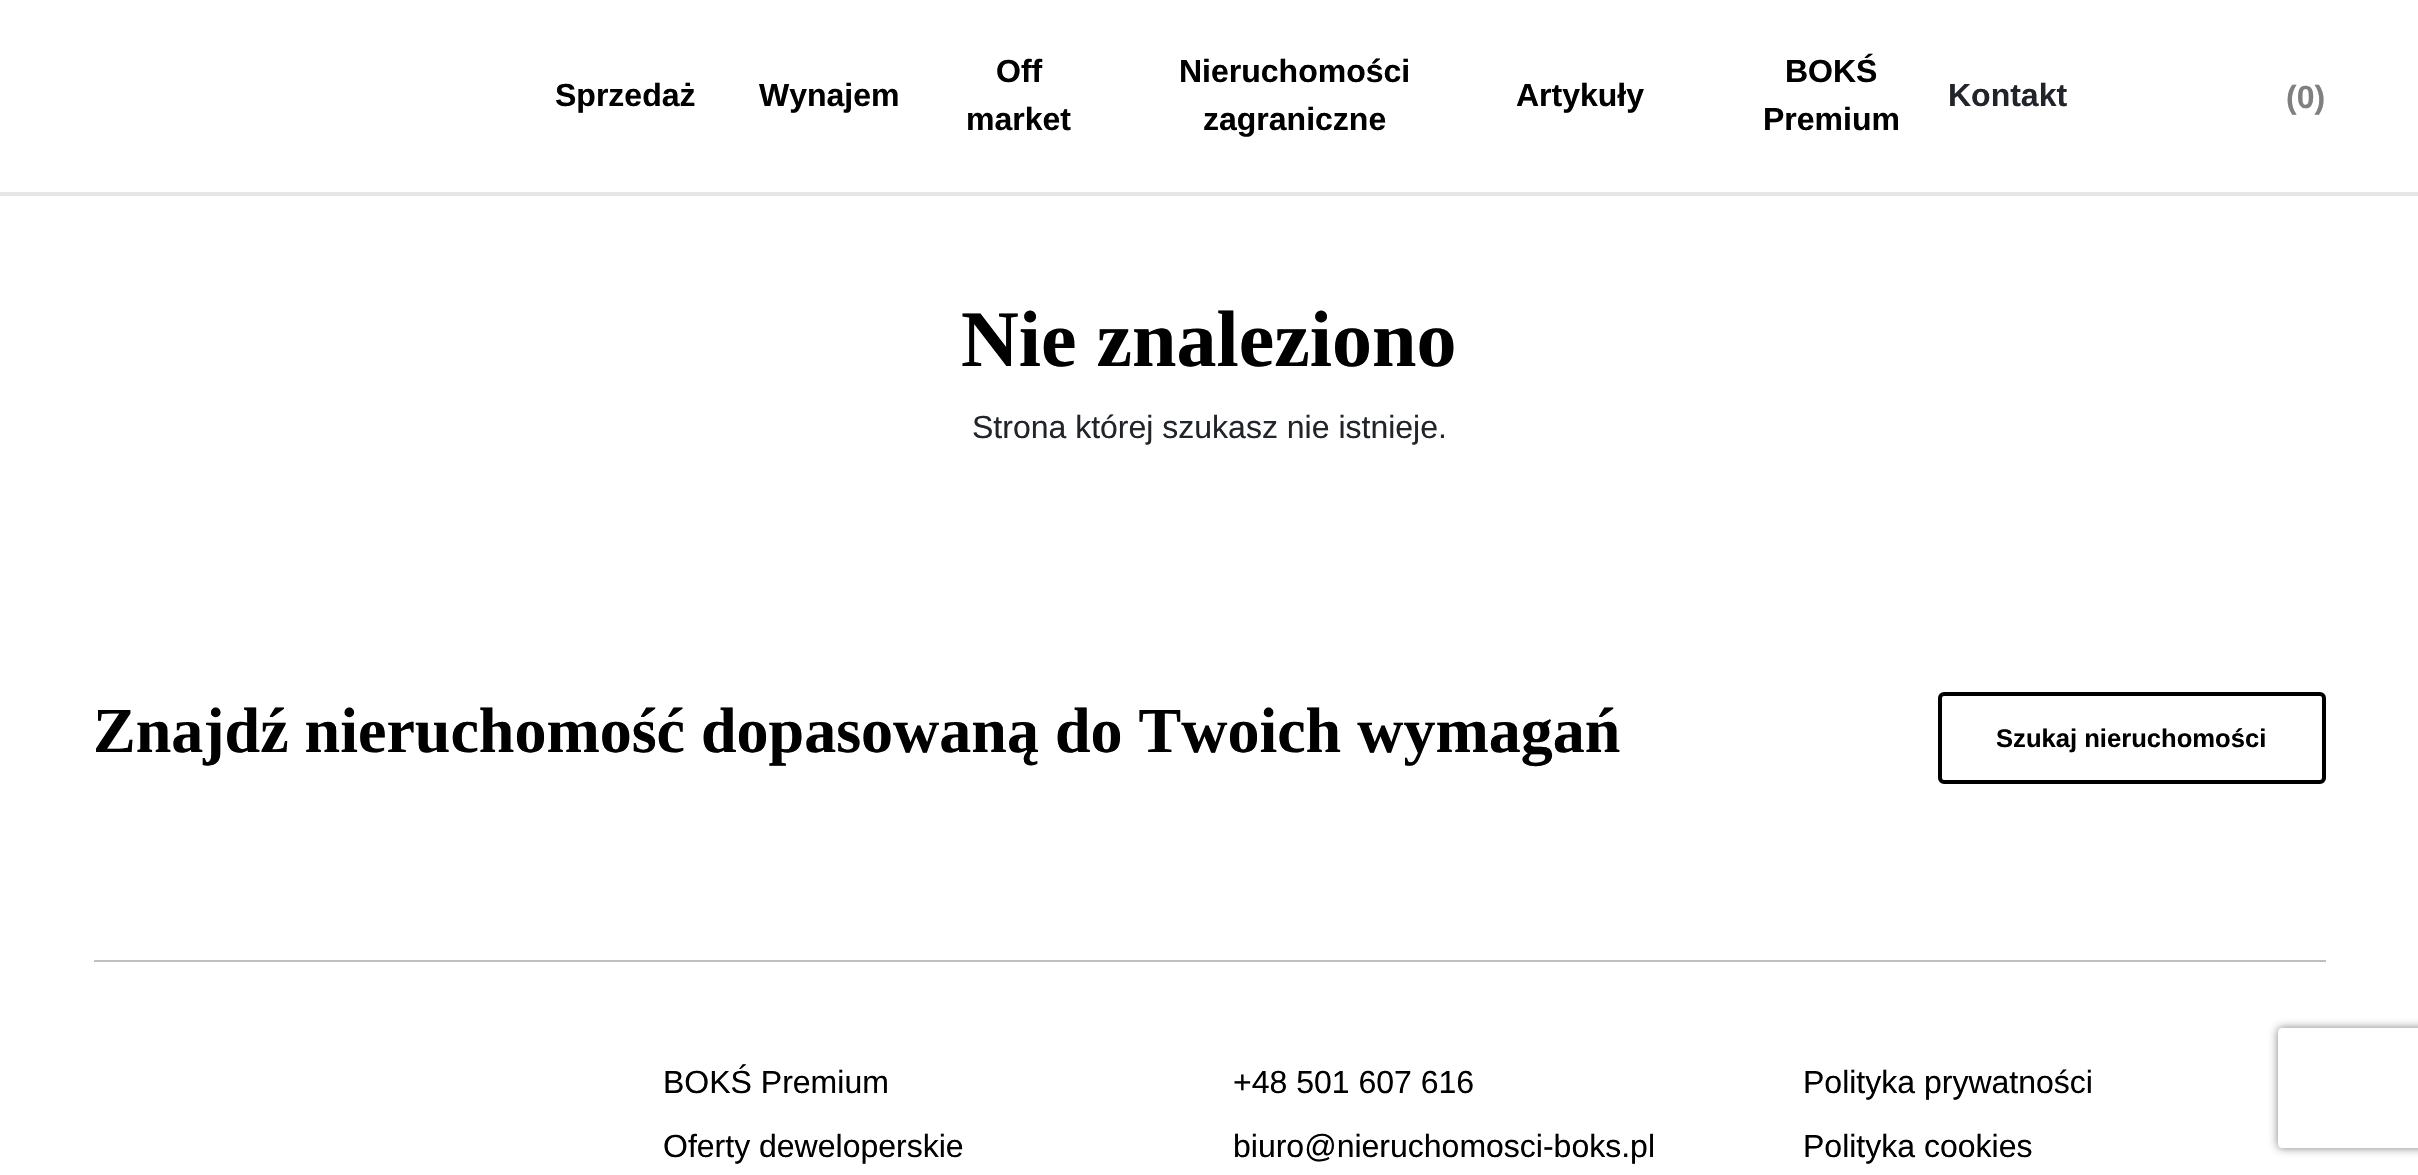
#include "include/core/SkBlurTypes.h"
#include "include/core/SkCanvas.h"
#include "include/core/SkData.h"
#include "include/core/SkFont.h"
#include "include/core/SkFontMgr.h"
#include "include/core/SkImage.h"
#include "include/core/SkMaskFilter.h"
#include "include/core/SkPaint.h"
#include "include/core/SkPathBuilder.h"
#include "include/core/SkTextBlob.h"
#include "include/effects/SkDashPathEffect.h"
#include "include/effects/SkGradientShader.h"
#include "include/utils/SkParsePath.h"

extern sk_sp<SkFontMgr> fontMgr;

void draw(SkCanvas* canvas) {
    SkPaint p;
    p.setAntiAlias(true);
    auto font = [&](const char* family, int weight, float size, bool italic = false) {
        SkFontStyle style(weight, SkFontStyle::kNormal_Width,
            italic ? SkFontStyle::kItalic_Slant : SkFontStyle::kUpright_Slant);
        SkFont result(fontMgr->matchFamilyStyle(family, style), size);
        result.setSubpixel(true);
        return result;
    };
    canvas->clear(0xFFFFFFFF);
    p.setColor(0xFFE6E6E7);
    canvas->drawRect(SkRect::MakeLTRB(0, 192, 2418, 196), p);
    auto font1 = font("Liberation Sans", 700, 32);
    p.setColor(0xFF000000);
    {
        const struct { const char* s; float x, y; } items[] = {
            {"Sprzedaż", 555, 106},
            {"Wynajem", 759, 106},
            {"Off", 996, 82},
            {"market", 966, 130},
            {"Nieruchomości", 1179, 82},
            {"zagraniczne", 1203, 130},
            {"Artykuły", 1516, 106},
            {"BOKŚ", 1785, 82},
            {"Premium", 1763, 130},
        };
        for (auto [s, x, y] : items) {
            canvas->drawString(s, x, y, font1, p);
        }
    }
    p.setColor(0xFF212529);
    canvas->drawString("Kontakt", 1948, 106, font1, p);
    p.setColor(0xFF808080);
    canvas->drawString("(0)", 2286, 108, font1, p);
    auto font2 = font("Liberation Serif", 700, 80);
    p.setColor(0xFF000000);
    canvas->drawString("Nie znaleziono", 961, 366, font2, p);
    auto font3 = font("Liberation Sans", 400, 32);
    p.setColor(0xFF212529);
    canvas->drawString("Strona której szukasz nie istnieje.", 972, 438, font3, p);
    auto font4 = font("Liberation Serif", 700, 64);
    p.setColor(0xFF000000);
    canvas->drawString("Znajdź nieruchomość dopasowaną do Twoich wymagań", 93, 752, font4, p);
    p.setStyle(SkPaint::kStroke_Style);
    p.setStrokeWidth(4);
    canvas->drawRoundRect(SkRect::MakeLTRB(1940, 694, 2324, 782), 4, 4, p);
    auto font5 = font("Liberation Sans", 700, 25.6f);
    p.setStyle(SkPaint::kFill_Style);
    canvas->drawString("Szukaj nieruchomości", 1996, 747, font5, p);
    p.setColor(0xFFBFBFBF);
    canvas->drawRect(SkRect::MakeLTRB(94, 960, 2326, 962), p);
    p.setColor(0xFF000000);
    {
        const struct { const char* s; float x, y; } items[] = {
            {"BOKŚ Premium", 663, 1093},
            {"Oferty deweloperskie", 663, 1157},
            {"+48 501 607 616", 1233, 1093},
            {"biuro@nieruchomosci-boks.pl", 1233, 1157},
            {"Polityka prywatności", 1803, 1093},
            {"Polityka cookies", 1803, 1157},
        };
        for (auto [s, x, y] : items) {
            canvas->drawString(s, x, y, font3, p);
        }
    }
    canvas->save();
    canvas->clipPath(SkPathBuilder(SkPathFillType::kEvenOdd).moveTo(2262, 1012).lineTo(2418, 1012).lineTo(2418, 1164).lineTo(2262, 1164).close().moveTo(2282, 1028).lineTo(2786, 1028).cubicTo(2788, 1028, 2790, 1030, 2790, 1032).lineTo(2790, 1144).cubicTo(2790, 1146, 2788, 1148, 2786, 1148).lineTo(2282, 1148).cubicTo(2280, 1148, 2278, 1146, 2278, 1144).lineTo(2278, 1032).cubicTo(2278, 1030, 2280, 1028, 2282, 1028).close().detach(), true);
    p.setColor(0xFF808080);
    p.setMaskFilter(SkMaskFilter::MakeBlur(kNormal_SkBlurStyle, 5));
    canvas->drawRoundRect(SkRect::MakeLTRB(2278, 1028, 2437, 1148), 4, 4, p);
    p.setMaskFilter(nullptr);
    canvas->restore();
}
